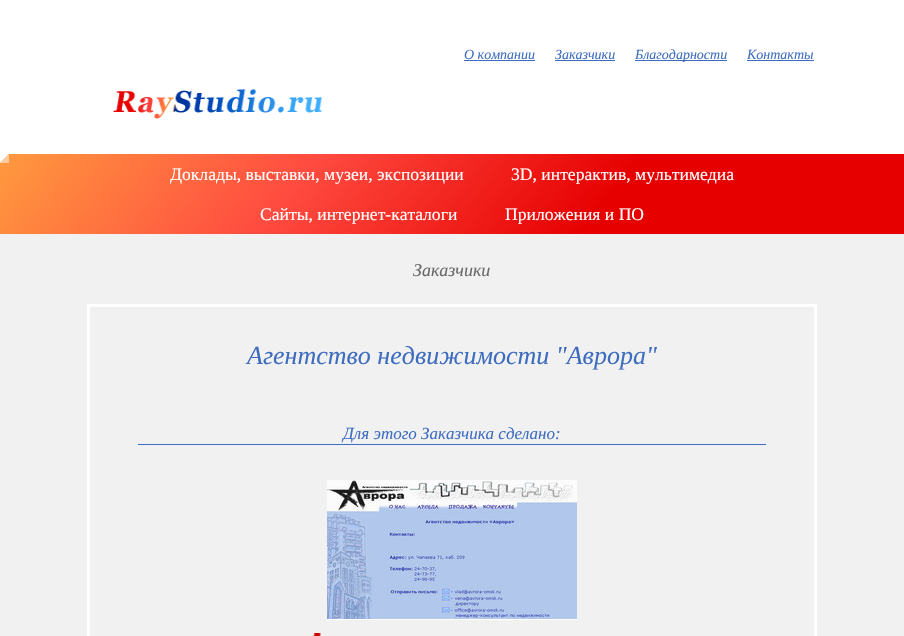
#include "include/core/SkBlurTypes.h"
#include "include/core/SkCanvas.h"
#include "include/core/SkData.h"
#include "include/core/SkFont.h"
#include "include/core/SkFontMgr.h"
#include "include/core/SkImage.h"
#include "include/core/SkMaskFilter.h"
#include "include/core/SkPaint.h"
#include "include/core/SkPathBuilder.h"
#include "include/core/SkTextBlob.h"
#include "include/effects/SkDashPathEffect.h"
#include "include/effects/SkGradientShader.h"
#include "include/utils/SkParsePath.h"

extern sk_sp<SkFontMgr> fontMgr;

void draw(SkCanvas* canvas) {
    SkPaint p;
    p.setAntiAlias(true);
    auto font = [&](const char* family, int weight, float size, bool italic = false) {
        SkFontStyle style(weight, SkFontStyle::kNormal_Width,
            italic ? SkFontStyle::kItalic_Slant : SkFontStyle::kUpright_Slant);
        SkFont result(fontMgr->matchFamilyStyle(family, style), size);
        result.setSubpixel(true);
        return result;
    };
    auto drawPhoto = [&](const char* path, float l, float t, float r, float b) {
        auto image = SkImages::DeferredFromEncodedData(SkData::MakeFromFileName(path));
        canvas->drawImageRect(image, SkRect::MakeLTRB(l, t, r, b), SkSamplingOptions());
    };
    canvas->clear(0xFFFFFFFF);
    auto font1 = font("Liberation Serif", 400, 14, true);
    p.setColor(0xFF3E6DC0);
    canvas->drawString("О компании", 464, 59, font1, p);
    canvas->drawRect(SkRect::MakeLTRB(464, 60, 535, 61), p);
    canvas->drawString("Заказчики", 555, 59, font1, p);
    canvas->drawRect(SkRect::MakeLTRB(555, 60, 615, 61), p);
    canvas->drawRect(SkRect::MakeLTRB(635, 60, 727, 61), p);
    canvas->drawString("Благодарности", 635, 59, font1, p);
    canvas->drawString("Контакты", 747, 59, font1, p);
    canvas->drawRect(SkRect::MakeLTRB(747, 60, 814, 61), p);
    drawPhoto("media/1.png", 113, 89, 323, 119);
    {
        const SkColor colors[] = {0xFFFF9A3F, 0xFFFF4B40, 0xFFE60000, 0xFFE60000};
        const float stops[] = {0, 0.33f, 0.67f, 1};
        const SkPoint ends[] = {{152, -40}, {752, 428}};
        p.setShader(SkGradientShader::MakeLinear(ends, colors, stops, 4, SkTileMode::kClamp));
        p.setAlpha(255);
    }
    canvas->drawRect(SkRect::MakeLTRB(0, 154, 904, 234), p);
    drawPhoto("media/2.png", 0, 154, 9, 163);
    auto font2 = font("Liberation Serif", 400, 17.6f);
    p.setShader(nullptr);
    p.setColor(0xFFFFFFFF);
    {
        const struct { const char* s; float x, y; } items[] = {
            {"Доклады, выставки, музеи, экспозиции", 170, 180},
            {"3D, интерактив, мультимедиа", 511, 180},
            {"Сайты, интернет-каталоги", 260, 220},
            {"Приложения и ПО", 505, 220},
        };
        for (auto [s, x, y] : items) {
            canvas->drawString(s, x, y, font2, p);
        }
    }
    p.setColor(0xFFF1F1F1);
    canvas->drawRect(SkRect::MakeLTRB(0, 234, 904, 636), p);
    auto font3 = font("Liberation Serif", 400, 18, true);
    p.setColor(0xFF696969);
    canvas->drawString("Заказчики", 413, 276, font3, p);
    p.setColor(0xFF3E6DC0);
    canvas->drawRect(SkRect::MakeLTRB(138, 444, 766, 445), p);
    p.setStyle(SkPaint::kStroke_Style);
    p.setStrokeWidth(3);
    p.setColor(0xFFFFFFFF);
    canvas->drawRect(SkRect::MakeLTRB(88.5f, 305.5f, 815.5f, 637.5f), p);
    auto font4 = font("Liberation Serif", 400, 26, true);
    p.setStyle(SkPaint::kFill_Style);
    p.setColor(0xFF3E6DC0);
    canvas->drawString("Агентство недвижимости \"Аврора\"", 247, 364, font4, p);
    auto font5 = font("Liberation Serif", 400, 17, true);
    canvas->drawString("Для этого Заказчика сделано:", 343, 439, font5, p);
    drawPhoto("media/3.png", 327, 480, 577, 619);
    p.setColor(0xFFFFFFFF);
    canvas->drawRect(SkRect::MakeLTRB(327, 619, 577, 620), p);
    drawPhoto("media/4.png", 313, 633, 321, 636);
}
